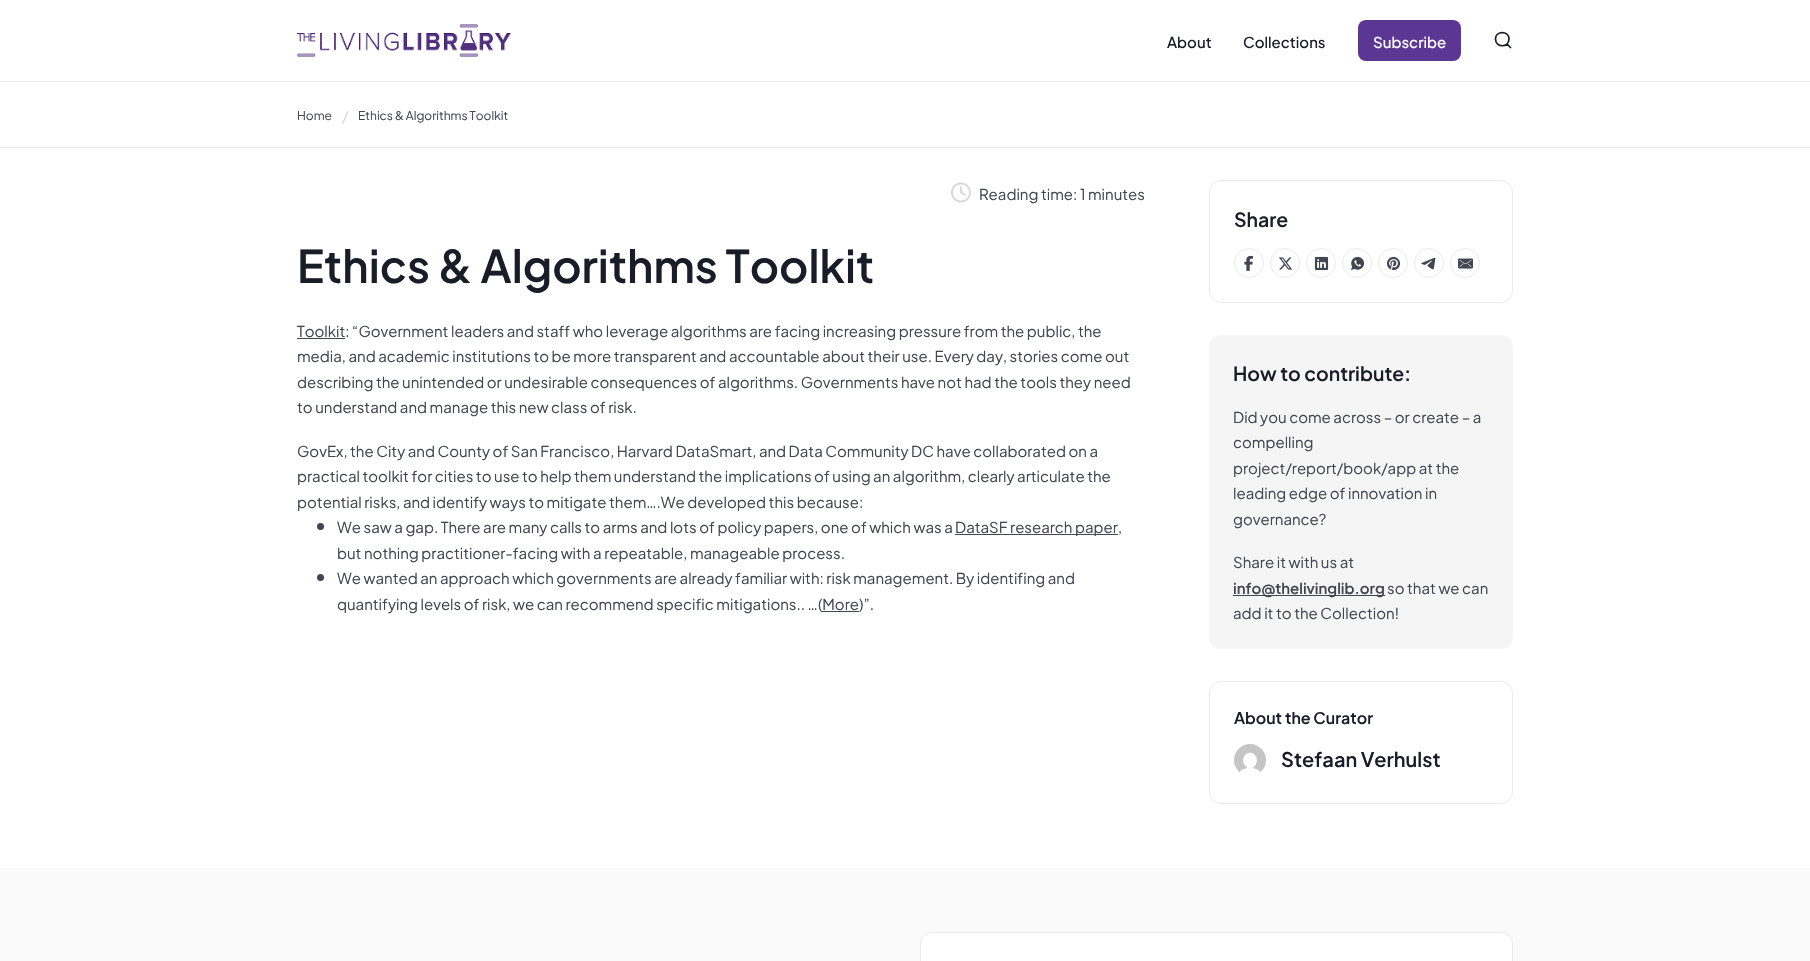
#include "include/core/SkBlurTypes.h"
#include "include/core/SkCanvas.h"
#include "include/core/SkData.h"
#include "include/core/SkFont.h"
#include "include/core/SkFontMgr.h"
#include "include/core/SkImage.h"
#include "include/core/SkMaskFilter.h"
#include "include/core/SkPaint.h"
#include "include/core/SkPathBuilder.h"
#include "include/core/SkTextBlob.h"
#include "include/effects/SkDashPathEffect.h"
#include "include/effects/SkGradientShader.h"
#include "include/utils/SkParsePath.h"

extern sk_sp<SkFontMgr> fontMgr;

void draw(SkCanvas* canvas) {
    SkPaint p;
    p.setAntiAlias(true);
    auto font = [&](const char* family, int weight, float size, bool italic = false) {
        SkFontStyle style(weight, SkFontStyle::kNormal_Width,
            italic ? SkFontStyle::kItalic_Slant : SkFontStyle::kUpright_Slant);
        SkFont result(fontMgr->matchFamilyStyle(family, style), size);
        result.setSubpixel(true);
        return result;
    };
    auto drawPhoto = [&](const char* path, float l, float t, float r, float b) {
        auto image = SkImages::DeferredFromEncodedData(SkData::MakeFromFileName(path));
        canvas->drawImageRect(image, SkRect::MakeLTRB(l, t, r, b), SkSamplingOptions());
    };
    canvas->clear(0xFFFFFFFF);
    drawPhoto("media/1.png", 297, 24, 511, 57);
    auto font1 = font("Plus Jakarta Sans", 500, 15);
    p.setColor(0xFF181D27);
    canvas->drawString("About", 1167, 48, font1, p);
    canvas->drawString("Collections", 1243, 48, font1, p);
    p.setColor(0xFF5C3693);
    canvas->drawRoundRect(SkRect::MakeLTRB(1358, 20, 1461, 61), 8, 8, p);
    p.setColor(0xFFFFFFFF);
    canvas->drawString("Subscribe", 1373, 48, font1, p);
    p.setStyle(SkPaint::kStroke_Style);
    p.setStrokeWidth(1.7f);
    p.setStrokeCap(SkPaint::kRound_Cap);
    p.setStrokeJoin(SkPaint::kRound_Join);
    p.setColor(0xFF181D27);
    canvas->drawPath(SkPathBuilder().moveTo(1510.5f, 47.5f).lineTo(1507, 44).moveTo(1509, 39).cubicTo(1509, 48, 1495.5f, 48, 1495.5f, 39).cubicTo(1495.5f, 30.5f, 1509, 30.5f, 1509, 39).close().detach(), p);
    p.setStyle(SkPaint::kFill_Style);
    p.setColor(0xFFE9EAEB);
    canvas->drawRect(SkRect::MakeLTRB(0, 81, 1810, 82), p);
    canvas->drawRect(SkRect::MakeLTRB(0, 147, 1810, 148), p);
    auto font2 = font("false", 400, 12);
    p.setColor(0xFF414651);
    canvas->drawString("Home", 297, 120, font2, p);
    auto font3 = font("false", 400, 15);
    p.setColor(0xFFD5D7DA);
    canvas->drawString("/", 342, 122, font3, p);
    p.setColor(0xFF414651);
    canvas->drawString("Ethics & Algorithms Toolkit", 358, 120, font2, p);
    drawPhoto("media/2.png", 951, 182, 971, 203);
    canvas->drawString("Reading time: 1 minutes", 979, 200, font3, p);
    auto font4 = font("Plus Jakarta Sans", 600, 45);
    p.setColor(0xFF181D27);
    canvas->drawString("Ethics & Algorithms Toolkit", 297, 283, font4, p);
    p.setColor(0xFF414651);
    canvas->drawRect(SkRect::MakeLTRB(297, 338, 345, 339), p);
    {
        const struct { const char* s; float x, y; } items[] = {
            {"Toolkit: “Government leaders and staff who leverage algorithms are facing increasing pressure from the public, the", 297, 337},
            {"media, and academic institutions to be more transparent and accountable about their use. Every day, stories come out", 297, 362},
            {"describing the unintended or undesirable consequences of algorithms. Governments have not had the tools they need", 297, 388},
            {"to understand and manage this new class of risk.", 297, 413},
            {"GovEx, the City and County of San Francisco, Harvard DataSmart, and Data Community DC have collaborated on a", 297, 457},
            {"practical toolkit for cities to use to help them understand the implications of using an algorithm, clearly articulate the", 297, 482},
            {"potential risks, and identify ways to mitigate them….We developed this because:", 297, 508},
        };
        for (auto [s, x, y] : items) {
            canvas->drawString(s, x, y, font3, p);
        }
    }
    canvas->drawCircle(320.5f, 526.5f, 3.5f, p);
    canvas->drawString("We saw a gap. There are many calls to arms and lots of policy papers, one of which was a", 337, 533, font3, p);
    canvas->drawRect(SkRect::MakeLTRB(955, 534, 1118, 535), p);
    canvas->drawString("DataSF research paper,", 955, 533, font3, p);
    canvas->drawString("but nothing practitioner-facing with a repeatable, manageable process.", 337, 559, font3, p);
    canvas->drawCircle(320.5f, 577.5f, 3.5f, p);
    canvas->drawString("We wanted an approach which governments are already familiar with: risk management. By identifing and", 337, 584, font3, p);
    canvas->drawString("quantifying levels of risk, we can recommend specific mitigations.. …(More)”.", 337, 610, font3, p);
    canvas->drawRect(SkRect::MakeLTRB(822, 611, 859, 612), p);
    p.setStyle(SkPaint::kStroke_Style);
    p.setStrokeWidth(1);
    p.setStrokeCap(SkPaint::kButt_Cap);
    p.setStrokeJoin(SkPaint::kMiter_Join);
    p.setColor(0xFFE9EAEB);
    canvas->drawRoundRect(SkRect::MakeLTRB(1209.5f, 180.5f, 1512.5f, 302.5f), 11.5f, 11.5f, p);
    auto font5 = font("Plus Jakarta Sans", 600, 19.5f);
    p.setStyle(SkPaint::kFill_Style);
    p.setColor(0xFF181D27);
    canvas->drawString("Share", 1234, 227, font5, p);
    p.setStyle(SkPaint::kStroke_Style);
    p.setColor(0xFFE9EAEB);
    canvas->drawCircle(1249, 263, 14.5f, p);
    drawPhoto("media/3.png", 1244, 255, 1253, 271);
    canvas->drawCircle(1285, 263, 14.5f, p);
    drawPhoto("media/4.png", 1278, 257, 1293, 270);
    canvas->drawCircle(1321, 263, 14.5f, p);
    drawPhoto("media/5.png", 1314, 256, 1329, 271);
    canvas->drawCircle(1357, 263, 14.5f, p);
    drawPhoto("media/6.png", 1351, 256, 1365, 270);
    canvas->drawCircle(1393, 263, 14.5f, p);
    drawPhoto("media/7.png", 1386, 256, 1401, 271);
    canvas->drawCircle(1429, 263, 14.5f, p);
    drawPhoto("media/8.png", 1421, 257, 1436, 270);
    canvas->drawCircle(1465, 263, 14.5f, p);
    drawPhoto("media/9.png", 1458, 258, 1473, 269);
    p.setStyle(SkPaint::kFill_Style);
    p.setColor(0xFFF5F5F5);
    canvas->drawRoundRect(SkRect::MakeLTRB(1209, 335, 1513, 649), 12, 12, p);
    p.setColor(0xFF181D27);
    canvas->drawString("How to contribute:", 1233, 381, font5, p);
    p.setColor(0xFF414651);
    {
        const struct { const char* s; float x, y; } items[] = {
            {"Did you come across – or create – a", 1233, 423},
            {"compelling", 1233, 448},
            {"project/report/book/app at the", 1233, 474},
            {"leading edge of innovation in", 1233, 499},
            {"governance?", 1233, 525},
            {"Share it with us at", 1233, 568},
        };
        for (auto [s, x, y] : items) {
            canvas->drawString(s, x, y, font3, p);
        }
    }
    canvas->drawRect(SkRect::MakeLTRB(1233, 595, 1385, 596), p);
    auto font6 = font("Plus Jakarta Sans", 600, 15);
    canvas->drawString("info@thelivinglib.org", 1233, 594, font6, p);
    canvas->drawString("so that we can", 1387, 594, font3, p);
    canvas->drawString("add it to the Collection!", 1233, 619, font3, p);
    p.setStyle(SkPaint::kStroke_Style);
    p.setColor(0xFFE9EAEB);
    canvas->drawRoundRect(SkRect::MakeLTRB(1209.5f, 681.5f, 1512.5f, 803.5f), 11.5f, 11.5f, p);
    auto font7 = font("Plus Jakarta Sans", 600, 16);
    p.setStyle(SkPaint::kFill_Style);
    p.setColor(0xFF181D27);
    canvas->drawString("About the Curator", 1234, 724, font7, p);
    drawPhoto("media/10.png", 1234, 744, 1266, 774);
    auto font8 = font("Plus Jakarta Sans", 600, 20);
    canvas->drawString("Stefaan Verhulst", 1281, 767, font8, p);
    p.setColor(0xFFFAFAFA);
    canvas->drawRect(SkRect::MakeLTRB(0, 868, 1810, 961), p);
    p.setColor(0xFFFFFFFF);
    canvas->drawRoundRect(SkRect::MakeLTRB(920.5f, 932.5f, 1512.5f, 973.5f), 11.5f, 11.5f, p);
    p.setStyle(SkPaint::kStroke_Style);
    p.setColor(0xFFE9EAEB);
    canvas->drawRoundRect(SkRect::MakeLTRB(920.5f, 932.5f, 1512.5f, 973.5f), 11.5f, 11.5f, p);
}
